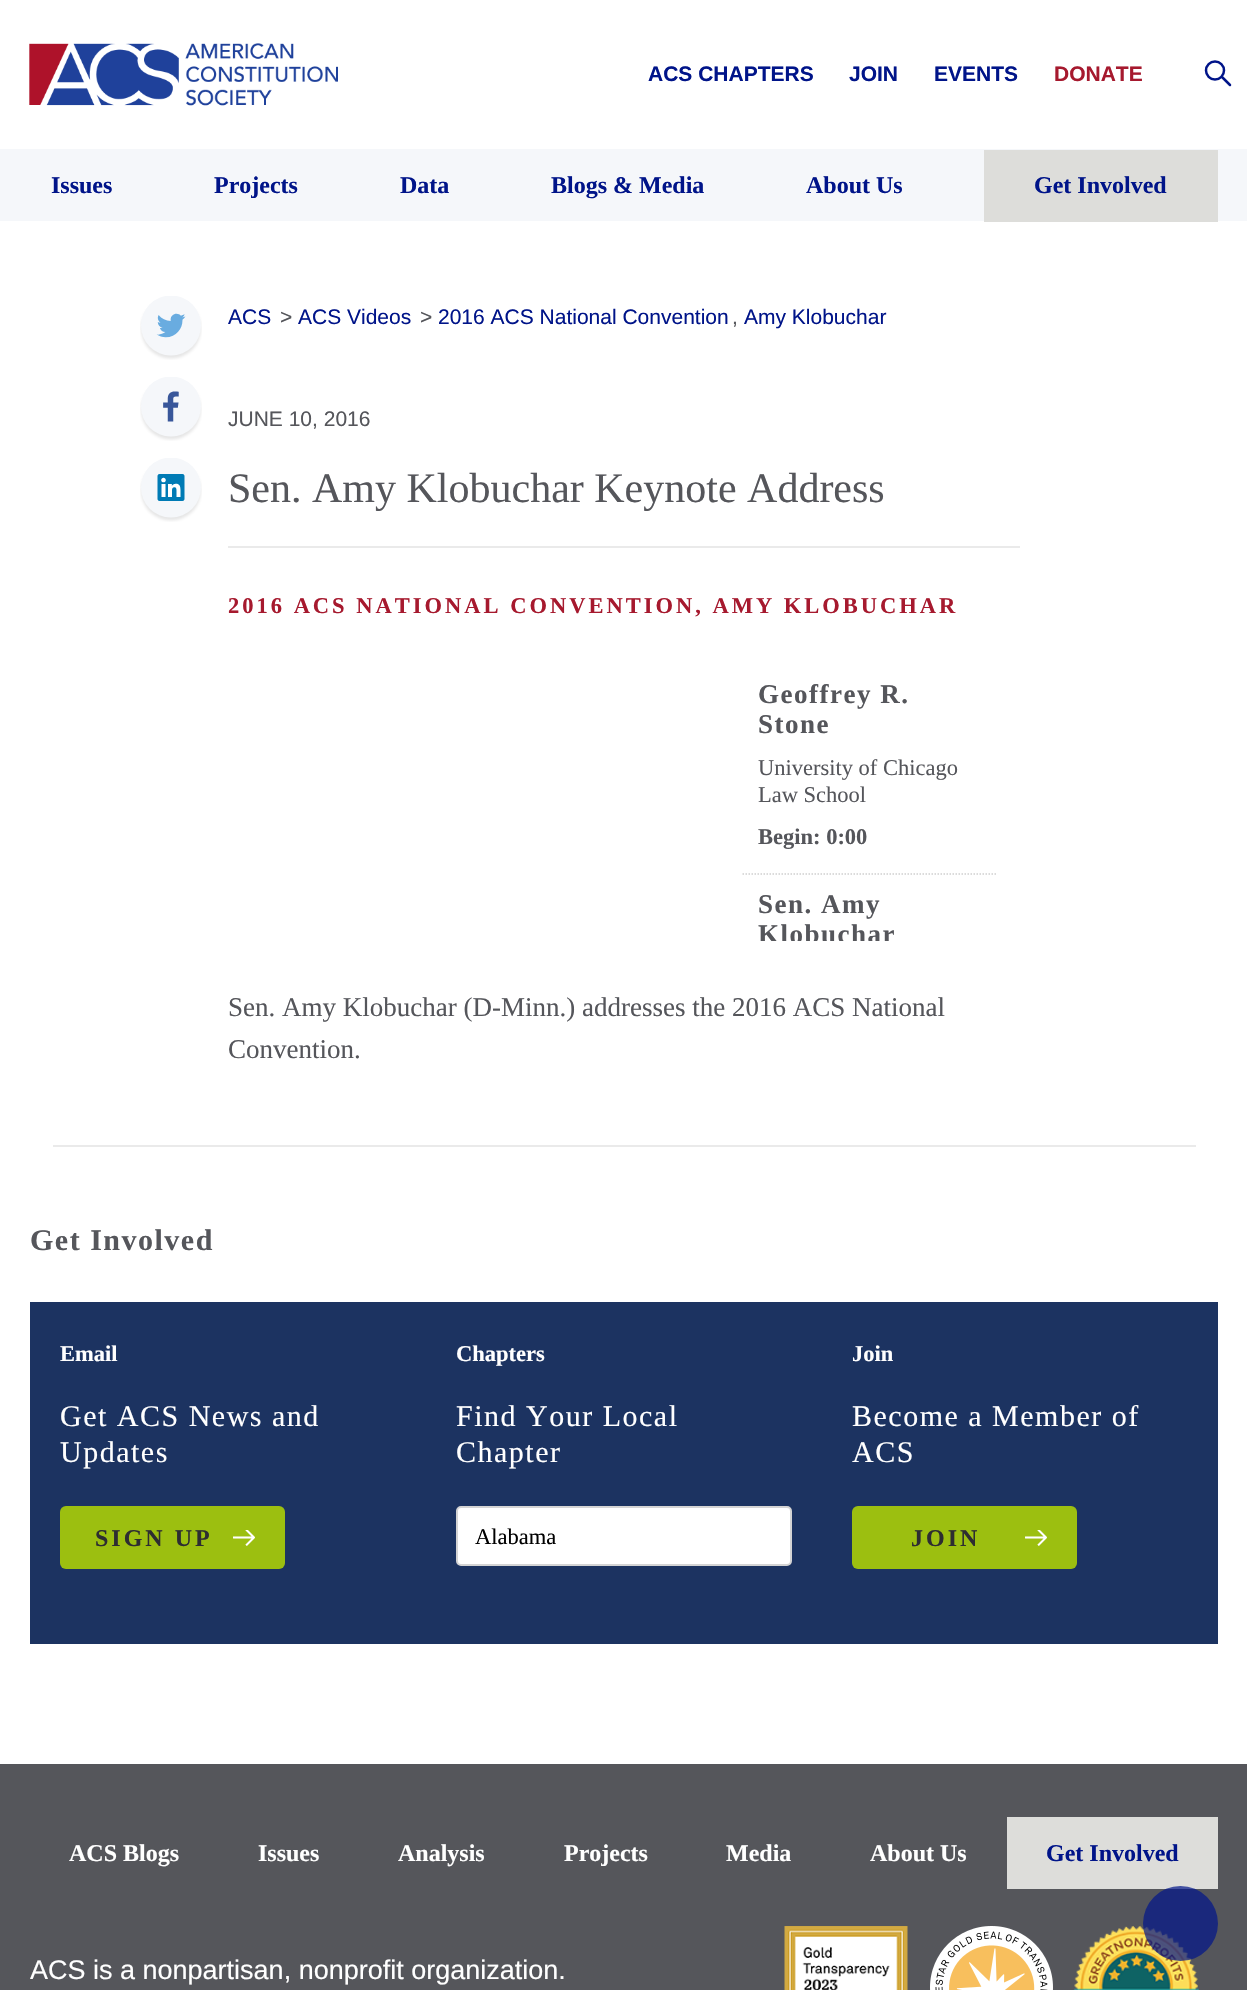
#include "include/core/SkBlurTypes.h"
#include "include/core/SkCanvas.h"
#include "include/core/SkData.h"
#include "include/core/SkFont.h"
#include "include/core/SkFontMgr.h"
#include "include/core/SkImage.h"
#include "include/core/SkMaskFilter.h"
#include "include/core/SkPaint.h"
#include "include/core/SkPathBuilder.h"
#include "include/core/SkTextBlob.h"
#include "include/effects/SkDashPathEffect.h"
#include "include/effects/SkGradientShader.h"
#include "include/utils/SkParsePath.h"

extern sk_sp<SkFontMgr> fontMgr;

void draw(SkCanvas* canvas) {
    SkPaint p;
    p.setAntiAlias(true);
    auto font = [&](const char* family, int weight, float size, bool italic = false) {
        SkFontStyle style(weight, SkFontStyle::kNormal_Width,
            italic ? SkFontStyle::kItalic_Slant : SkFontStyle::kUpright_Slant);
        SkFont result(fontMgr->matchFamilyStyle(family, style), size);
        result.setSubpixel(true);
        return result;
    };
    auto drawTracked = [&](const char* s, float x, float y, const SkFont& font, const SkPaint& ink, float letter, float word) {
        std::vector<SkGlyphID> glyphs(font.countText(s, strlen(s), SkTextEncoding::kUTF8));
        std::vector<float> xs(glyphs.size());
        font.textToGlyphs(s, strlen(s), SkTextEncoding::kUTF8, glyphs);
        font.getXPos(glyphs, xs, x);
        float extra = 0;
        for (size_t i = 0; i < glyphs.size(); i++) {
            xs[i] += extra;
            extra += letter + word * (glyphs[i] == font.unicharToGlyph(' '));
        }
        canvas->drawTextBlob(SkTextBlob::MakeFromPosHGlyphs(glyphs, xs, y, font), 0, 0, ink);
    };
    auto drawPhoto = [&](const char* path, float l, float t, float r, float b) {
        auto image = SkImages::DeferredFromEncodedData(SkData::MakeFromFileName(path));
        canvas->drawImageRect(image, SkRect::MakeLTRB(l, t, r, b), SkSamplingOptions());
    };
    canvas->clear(0xFFFFFFFF);
    drawPhoto("media/1.png", 29, 43, 338, 106);
    auto font1 = font("Liberation Sans", 700, 21);
    p.setColor(0xFF001489);
    {
        const struct { const char* s; float x, y; } items[] = {
            {"ACS CHAPTERS", 648, 81},
            {"JOIN", 849, 81},
            {"EVENTS", 934, 81},
        };
        for (auto [s, x, y] : items) {
            canvas->drawString(s, x, y, font1, p);
        }
    }
    p.setColor(0xFFA6192E);
    canvas->drawString("DONATE", 1054, 81, font1, p);
    p.setStyle(SkPaint::kStroke_Style);
    p.setStrokeWidth(2.5f);
    p.setColor(0xFF001489);
    canvas->drawCircle(1215, 70.5f, 9, p);
    p.setStrokeCap(SkPaint::kRound_Cap);
    canvas->drawPath(SkPathBuilder().moveTo(1222.5f, 77.5f).lineTo(1230, 85).detach(), p);
    p.setStyle(SkPaint::kFill_Style);
    p.setColor(0xFFF5F7FA);
    canvas->drawRect(SkRect::MakeLTRB(0, 149, 1247, 221), p);
    auto font2 = font("Liberation Serif", 700, 24);
    p.setColor(0xFF001489);
    {
        const struct { const char* s; float x, y; } items[] = {
            {"Issues", 51, 193},
            {"Projects", 214, 193},
            {"Data", 400, 193},
            {"Blogs & Media", 551, 193},
            {"About Us", 806, 193},
        };
        for (auto [s, x, y] : items) {
            canvas->drawString(s, x, y, font2, p);
        }
    }
    p.setColor(0xFFDDDDDA);
    canvas->drawRect(SkRect::MakeLTRB(984, 150, 1218, 222), p);
    p.setColor(0xFF001489);
    canvas->drawString("Get Involved", 1034, 193, font2, p);
    drawPhoto("media/2.png", 140, 296, 202, 360);
    drawPhoto("media/3.png", 140, 377, 202, 441);
    drawPhoto("media/4.png", 140, 458, 202, 522);
    auto font3 = font("Liberation Sans", 400, 21);
    canvas->drawString("ACS", 228, 324, font3, p);
    p.setColor(0xFF55565B);
    canvas->drawString(">", 280, 324, font3, p);
    p.setColor(0xFF001489);
    canvas->drawString("ACS Videos", 298, 324, font3, p);
    p.setColor(0xFF55565B);
    canvas->drawString(">", 420, 324, font3, p);
    p.setColor(0xFF001489);
    canvas->drawString("2016 ACS National Convention", 438, 324, font3, p);
    canvas->drawString("Amy Klobuchar", 744, 324, font3, p);
    p.setColor(0xFF55565B);
    canvas->drawString(",", 732, 324, font3, p);
    canvas->drawString("JUNE 10, 2016", 228, 426, font3, p);
    auto font4 = font("Liberation Serif", 400, 42);
    canvas->drawString("Sen. Amy Klobuchar Keynote Address", 228, 502, font4, p);
    p.setColor(0xFFEAEAEA);
    canvas->drawRect(SkRect::MakeLTRB(228, 546, 1020, 548), p);
    auto font5 = font("Liberation Serif", 700, 22.5f);
    p.setColor(0xFFA6192E);
    drawTracked("2016 ACS NATIONAL CONVENTION, AMY KLOBUCHAR", 228, 613, font5, p, 3, 0);
    p.setStyle(SkPaint::kStroke_Style);
    p.setStrokeWidth(1.5f);
    p.setStrokeCap(SkPaint::kButt_Cap);
    p.setColor(0xFFCFCFCF);
    p.setPathEffect(SkDashPathEffect::Make({{1.5f, 1.5f}}, 0));
    canvas->drawPath(SkPathBuilder().moveTo(742.5f, 874).lineTo(997.5f, 874).detach(), p);
    p.setPathEffect(nullptr);
    auto font6 = font("Liberation Serif", 700, 27);
    p.setStyle(SkPaint::kFill_Style);
    p.setColor(0xFF55565B);
    drawTracked("Geoffrey R.", 758, 703, font6, p, 1.5f, 0);
    drawTracked("Stone", 758, 733, font6, p, 1.5f, 0);
    auto font7 = font("Liberation Serif", 400, 22.5f);
    canvas->drawString("University of Chicago", 758, 775, font7, p);
    canvas->drawString("Law School", 758, 802, font7, p);
    canvas->drawString("Begin: 0:00", 758, 844, font5, p);
    drawTracked("Sen. Amy", 758, 913, font6, p, 1.5f, 0);
    canvas->save();
    canvas->clipRect(SkRect::MakeLTRB(720, 665, 1020, 941));
    drawTracked("Klobuchar", 758, 943, font6, p, 1.5f, 0);
    canvas->restore();
    auto font8 = font("Liberation Serif", 400, 27);
    canvas->drawString("Sen. Amy Klobuchar (D-Minn.) addresses the 2016 ACS National", 228, 1016, font8, p);
    canvas->drawString("Convention.", 228, 1058, font8, p);
    p.setColor(0xFFEAEAEA);
    canvas->drawRect(SkRect::MakeLTRB(53, 1145, 1196, 1147), p);
    auto font9 = font("Liberation Serif", 700, 30);
    p.setColor(0xFF55565B);
    drawTracked("Get Involved", 30, 1250, font9, p, 1.5f, 0);
    p.setColor(0xFF1C3361);
    canvas->drawRect(SkRect::MakeLTRB(30, 1302, 1218, 1644), p);
    p.setColor(0xFFFFFFFF);
    canvas->drawString("Email", 60, 1361, font5, p);
    auto font10 = font("Liberation Serif", 400, 30);
    drawTracked("Get ACS News and", 60, 1426, font10, p, 1.5f, 0);
    drawTracked("Updates", 60, 1462, font10, p, 1.5f, 0);
    p.setColor(0xFF9CBF10);
    canvas->drawRoundRect(SkRect::MakeLTRB(60, 1506, 285, 1569), 6, 6, p);
    p.setColor(0xFF2D2D31);
    drawTracked("SIGN UP", 95, 1546, font2, p, 3, 0);
    drawPhoto("media/5.png", 233, 1530, 255, 1546);
    p.setColor(0xFFFFFFFF);
    canvas->drawString("Chapters", 456, 1361, font5, p);
    drawTracked("Find Your Local", 456, 1426, font10, p, 1.5f, 0);
    drawTracked("Chapter", 456, 1462, font10, p, 1.5f, 0);
    canvas->drawRoundRect(SkRect::MakeLTRB(457, 1507, 791, 1565), 4, 4, p);
    p.setStyle(SkPaint::kStroke_Style);
    p.setStrokeWidth(2);
    p.setColor(0xFFD4D4D4);
    canvas->drawRoundRect(SkRect::MakeLTRB(457, 1507, 791, 1565), 4, 4, p);
    p.setStyle(SkPaint::kFill_Style);
    p.setColor(0xFF000000);
    canvas->drawString("Alabama", 475, 1544, font7, p);
    p.setColor(0xFFFFFFFF);
    canvas->drawString("Join", 852, 1361, font5, p);
    drawTracked("Become a Member of", 852, 1426, font10, p, 1.5f, 0);
    drawTracked("ACS", 852, 1462, font10, p, 1.5f, 0);
    p.setColor(0xFF9CBF10);
    canvas->drawRoundRect(SkRect::MakeLTRB(852, 1506, 1077, 1569), 6, 6, p);
    p.setColor(0xFF2D2D31);
    drawTracked("JOIN", 911, 1546, font2, p, 3, 0);
    drawPhoto("media/5.png", 1025, 1530, 1047, 1546);
    p.setColor(0xFF55565B);
    canvas->drawRect(SkRect::MakeLTRB(0, 1764, 1247, 1990), p);
    p.setColor(0xFFFFFFFF);
    {
        const struct { const char* s; float x, y; } items[] = {
            {"ACS Blogs", 69, 1861},
            {"Issues", 258, 1861},
            {"Analysis", 398, 1861},
            {"Projects", 564, 1861},
            {"Media", 726, 1861},
            {"About Us", 870, 1861},
        };
        for (auto [s, x, y] : items) {
            canvas->drawString(s, x, y, font2, p);
        }
    }
    p.setColor(0xFFDDDDDA);
    canvas->drawRect(SkRect::MakeLTRB(1007, 1817, 1218, 1889), p);
    p.setColor(0xFF001489);
    canvas->drawString("Get Involved", 1046, 1861, font2, p);
    auto font11 = font("Liberation Sans", 400, 27);
    p.setColor(0xFFFFFFFF);
    canvas->drawString("ACS is a nonpartisan, nonprofit organization.", 30, 1979, font11, p);
    drawPhoto("media/6.png", 784, 1926, 908, 1990);
    drawPhoto("media/7.png", 930, 1926, 1053, 1990);
    drawPhoto("media/8.png", 1074, 1926, 1199, 1990);
    p.setColor(0xB3001489);
    canvas->drawCircle(1180.5f, 1923.5f, 37.5f, p);
}
